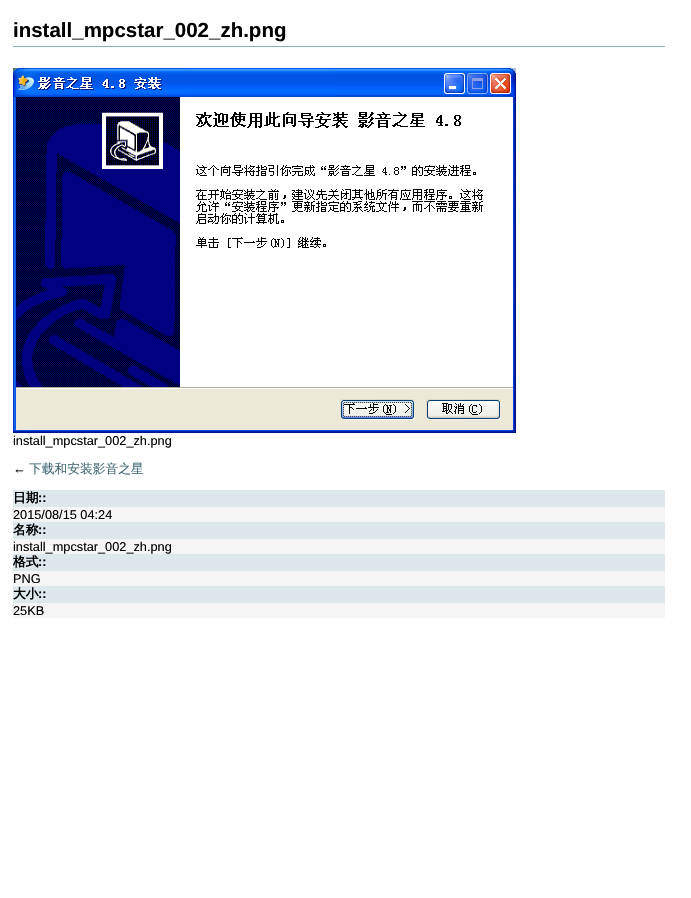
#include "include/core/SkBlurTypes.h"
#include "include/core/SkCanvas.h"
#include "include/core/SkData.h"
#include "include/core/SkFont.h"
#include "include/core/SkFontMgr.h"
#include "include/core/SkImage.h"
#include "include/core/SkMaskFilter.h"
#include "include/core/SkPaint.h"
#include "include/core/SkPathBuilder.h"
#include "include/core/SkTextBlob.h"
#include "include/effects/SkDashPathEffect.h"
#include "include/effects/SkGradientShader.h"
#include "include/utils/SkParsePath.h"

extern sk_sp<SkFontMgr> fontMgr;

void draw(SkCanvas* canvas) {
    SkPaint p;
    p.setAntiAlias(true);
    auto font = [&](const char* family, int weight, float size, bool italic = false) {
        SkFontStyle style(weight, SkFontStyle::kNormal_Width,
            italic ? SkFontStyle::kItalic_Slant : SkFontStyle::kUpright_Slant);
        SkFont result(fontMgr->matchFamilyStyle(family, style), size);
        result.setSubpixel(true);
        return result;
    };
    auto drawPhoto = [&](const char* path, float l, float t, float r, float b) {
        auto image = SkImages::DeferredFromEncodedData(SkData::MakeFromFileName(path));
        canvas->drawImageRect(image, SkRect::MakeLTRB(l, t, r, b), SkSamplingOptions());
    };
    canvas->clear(0xFFFFFFFF);
    p.setColor(0xFF8CACBB);
    canvas->drawRect(SkRect::MakeLTRB(13, 46, 665, 47), p);
    auto font1 = font("Liberation Sans", 700, 20.5f);
    p.setColor(0xFF000000);
    canvas->drawString("install_mpcstar_002_zh.png", 13, 37, font1, p);
    drawPhoto("media/1.png", 13, 68, 516, 433);
    auto font2 = font("Liberation Sans", 400, 12.75f);
    canvas->drawString("install_mpcstar_002_zh.png", 13, 445, font2, p);
    canvas->drawString("←", 13, 473, font2, p);
    auto font3 = font("WenQuanYi Zen Hei", 500, 12.75f);
    p.setColor(0xFF436976);
    canvas->drawString("下载和安装影音之星", 29, 473, font3, p);
    p.setColor(0xFFDEE7EC);
    canvas->drawRect(SkRect::MakeLTRB(13, 490, 665, 507), p);
    auto font4 = font("WenQuanYi Zen Hei", 700, 12.75f);
    p.setColor(0xFF000000);
    canvas->drawString("日期", 13, 502, font4, p);
    auto font5 = font("Liberation Sans", 700, 12.75f);
    canvas->drawString("::", 38, 502, font5, p);
    p.setColor(0xFFF5F5F5);
    canvas->drawRect(SkRect::MakeLTRB(13, 507, 665, 522), p);
    p.setColor(0xFF000000);
    canvas->drawString("2015/08/15 04:24", 13, 519, font2, p);
    p.setColor(0xFFDEE7EC);
    canvas->drawRect(SkRect::MakeLTRB(13, 522, 665, 539), p);
    p.setColor(0xFF000000);
    canvas->drawString("名称", 13, 534, font4, p);
    canvas->drawString("::", 38, 534, font5, p);
    p.setColor(0xFFF5F5F5);
    canvas->drawRect(SkRect::MakeLTRB(13, 539, 665, 554), p);
    p.setColor(0xFF000000);
    canvas->drawString("install_mpcstar_002_zh.png", 13, 551, font2, p);
    p.setColor(0xFFDEE7EC);
    canvas->drawRect(SkRect::MakeLTRB(13, 554, 665, 571), p);
    p.setColor(0xFF000000);
    canvas->drawString("格式", 13, 566, font4, p);
    canvas->drawString("::", 38, 566, font5, p);
    p.setColor(0xFFF5F5F5);
    canvas->drawRect(SkRect::MakeLTRB(13, 571, 665, 586), p);
    p.setColor(0xFF000000);
    canvas->drawString("PNG", 13, 583, font2, p);
    p.setColor(0xFFDEE7EC);
    canvas->drawRect(SkRect::MakeLTRB(13, 586, 665, 603), p);
    p.setColor(0xFF000000);
    canvas->drawString("大小", 13, 598, font4, p);
    canvas->drawString("::", 38, 598, font5, p);
    p.setColor(0xFFF5F5F5);
    canvas->drawRect(SkRect::MakeLTRB(13, 603, 665, 618), p);
    p.setColor(0xFF000000);
    canvas->drawString("25KB", 13, 615, font2, p);
}
